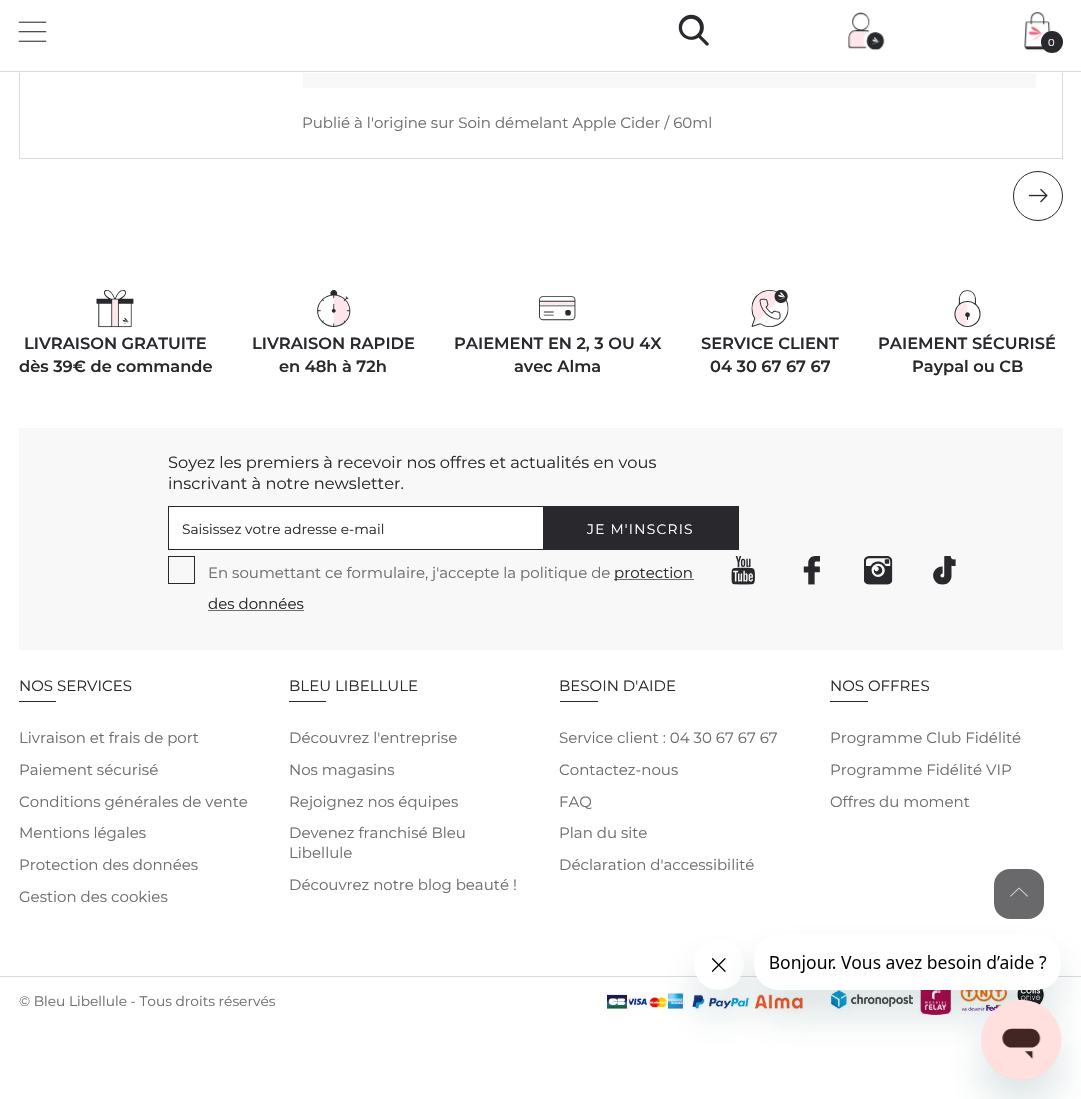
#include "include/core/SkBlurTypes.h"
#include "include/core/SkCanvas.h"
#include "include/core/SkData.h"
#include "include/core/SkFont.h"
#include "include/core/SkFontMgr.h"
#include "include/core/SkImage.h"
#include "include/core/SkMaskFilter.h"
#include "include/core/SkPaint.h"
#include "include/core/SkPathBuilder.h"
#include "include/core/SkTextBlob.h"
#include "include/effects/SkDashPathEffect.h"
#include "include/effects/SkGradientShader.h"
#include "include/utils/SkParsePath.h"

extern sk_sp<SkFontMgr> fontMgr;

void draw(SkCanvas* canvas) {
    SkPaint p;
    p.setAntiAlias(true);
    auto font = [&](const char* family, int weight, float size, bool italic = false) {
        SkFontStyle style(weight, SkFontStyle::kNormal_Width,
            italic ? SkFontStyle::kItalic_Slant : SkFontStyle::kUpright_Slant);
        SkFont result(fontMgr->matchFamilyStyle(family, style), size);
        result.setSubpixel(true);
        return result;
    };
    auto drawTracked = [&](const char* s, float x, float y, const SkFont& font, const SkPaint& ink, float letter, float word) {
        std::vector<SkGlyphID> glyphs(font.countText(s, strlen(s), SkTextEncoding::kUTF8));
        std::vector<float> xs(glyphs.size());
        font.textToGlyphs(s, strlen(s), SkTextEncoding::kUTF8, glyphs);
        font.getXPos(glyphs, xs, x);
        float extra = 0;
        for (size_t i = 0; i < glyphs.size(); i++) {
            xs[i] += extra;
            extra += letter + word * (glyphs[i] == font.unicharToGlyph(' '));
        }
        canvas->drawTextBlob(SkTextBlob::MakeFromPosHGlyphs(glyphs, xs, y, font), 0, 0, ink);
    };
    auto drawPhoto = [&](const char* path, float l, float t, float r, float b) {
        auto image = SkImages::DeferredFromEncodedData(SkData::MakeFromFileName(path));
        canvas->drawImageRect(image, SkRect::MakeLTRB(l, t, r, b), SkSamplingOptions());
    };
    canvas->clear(0xFFFFFFFF);
    p.setStyle(SkPaint::kStroke_Style);
    p.setStrokeWidth(1);
    p.setColor(0xFFDBDBDB);
    canvas->drawRect(SkRect::MakeLTRB(19.5f, -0.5f, 1062.5f, 158.5f), p);
    p.setStyle(SkPaint::kFill_Style);
    p.setColor(0xFFFFFFFF);
    canvas->drawRect(SkRect::MakeLTRB(19, 0, 1063, 73), p);
    p.setColor(0xFFDBDBDB);
    canvas->drawRect(SkRect::MakeLTRB(0, 71, 1081, 72), p);
    drawPhoto("media/1.png", 18, 21, 47, 42);
    drawPhoto("media/2.png", 678, 14, 709, 46);
    drawPhoto("media/3.png", 848, 12, 885, 51);
    drawPhoto("media/4.png", 1024, 12, 1051, 51);
    p.setColor(0xFF28282D);
    canvas->drawCircle(1052, 42, 11, p);
    auto font1 = font("Montserrat", 400, 10);
    p.setColor(0xFFFFFFFF);
    canvas->drawString("0", 1048, 46, font1, p);
    p.setColor(0xFFF8F8F8);
    canvas->drawRect(SkRect::MakeLTRB(303, 73, 1036, 88), p);
    auto font2 = font("Montserrat", 400, 15);
    p.setColor(0xFF6C6C71);
    canvas->drawString("Publié à l'origine sur Soin démelant Apple Cider / 60ml", 302, 128, font2, p);
    p.setStyle(SkPaint::kStroke_Style);
    p.setColor(0xFF28282D);
    canvas->drawCircle(1038, 196, 24.5f, p);
    drawPhoto("media/5.png", 1028, 188, 1048, 203);
    drawPhoto("media/6.png", 96, 290, 134, 328);
    auto font3 = font("Montserrat", 600, 16.25f);
    p.setStyle(SkPaint::kFill_Style);
    canvas->drawString("LIVRAISON GRATUITE", 24, 349, font3, p);
    canvas->drawString("dès 39€ de commande", 19, 372, font3, p);
    drawPhoto("media/7.png", 317, 290, 351, 327);
    canvas->drawString("LIVRAISON RAPIDE", 252, 349, font3, p);
    canvas->drawString("en 48h à 72h", 279, 372, font3, p);
    drawPhoto("media/8.png", 539, 296, 576, 321);
    canvas->drawString("PAIEMENT EN 2, 3 OU 4X", 454, 349, font3, p);
    canvas->drawString("avec Alma", 514, 372, font3, p);
    drawPhoto("media/9.png", 751, 290, 789, 327);
    canvas->drawString("SERVICE CLIENT", 701, 349, font3, p);
    canvas->drawString("04 30 67 67 67", 710, 372, font3, p);
    drawPhoto("media/10.png", 954, 290, 981, 327);
    canvas->drawString("PAIEMENT SÉCURISÉ", 878, 349, font3, p);
    canvas->drawString("Paypal ou CB", 912, 372, font3, p);
    p.setColor(0xFFF8F8F8);
    canvas->drawRect(SkRect::MakeLTRB(19, 428, 1063, 650), p);
    auto font4 = font("Montserrat", 400, 16.25f);
    p.setColor(0xFF28282D);
    canvas->drawString("Soyez les premiers à recevoir nos offres et actualités en vous", 168, 468, font4, p);
    canvas->drawString("inscrivant à notre newsletter.", 168, 489, font4, p);
    p.setColor(0xFFFFFFFF);
    canvas->drawRect(SkRect::MakeLTRB(169, 507, 543, 549), p);
    p.setStyle(SkPaint::kStroke_Style);
    p.setColor(0xFF28282D);
    canvas->drawRect(SkRect::MakeLTRB(168.5f, 506.5f, 738.5f, 549.5f), p);
    auto font5 = font("Montserrat", 400, 13.75f);
    p.setStyle(SkPaint::kFill_Style);
    canvas->drawString("Saisissez votre adresse e-mail", 182, 534, font5, p);
    canvas->drawRect(SkRect::MakeLTRB(543, 507, 738, 549), p);
    p.setColor(0xFFFFFFFF);
    drawTracked("JE M'INSCRIS", 587, 534, font5, p, 1.25f, 0);
    p.setStyle(SkPaint::kStroke_Style);
    p.setColor(0xFF28282D);
    canvas->drawRect(SkRect::MakeLTRB(168.5f, 556.5f, 194.5f, 583.5f), p);
    p.setStyle(SkPaint::kFill_Style);
    p.setColor(0xFF6C6C71);
    canvas->drawString("En soumettant ce formulaire, j'accepte la politique de", 208, 578, font2, p);
    canvas->drawRect(SkRect::MakeLTRB(614, 579, 694, 580), p);
    p.setColor(0xFF28282D);
    canvas->drawString("protection", 614, 578, font2, p);
    canvas->drawString("des données", 208, 609, font2, p);
    p.setColor(0xFF6C6C71);
    canvas->drawRect(SkRect::MakeLTRB(208, 610, 304, 611), p);
    drawPhoto("media/11.png", 731, 556, 755, 585);
    drawPhoto("media/12.png", 803, 556, 820, 585);
    drawPhoto("media/13.png", 864, 556, 893, 585);
    drawPhoto("media/14.png", 933, 556, 956, 585);
    p.setColor(0xFF28282D);
    canvas->drawString("NOS SERVICES", 19, 691, font2, p);
    canvas->drawRect(SkRect::MakeLTRB(19, 701, 56, 702), p);
    p.setColor(0xFF6C6C71);
    {
        const struct { const char* s; float x, y; } items[] = {
            {"Livraison et frais de port", 19, 743},
            {"Paiement sécurisé", 19, 775},
            {"Conditions générales de vente", 19, 807},
            {"Mentions légales", 19, 838},
            {"Protection des données", 19, 870},
            {"Gestion des cookies", 19, 902},
        };
        for (auto [s, x, y] : items) {
            canvas->drawString(s, x, y, font2, p);
        }
    }
    p.setColor(0xFF28282D);
    canvas->drawString("BLEU LIBELLULE", 289, 691, font2, p);
    canvas->drawRect(SkRect::MakeLTRB(289, 701, 326, 702), p);
    p.setColor(0xFF6C6C71);
    {
        const struct { const char* s; float x, y; } items[] = {
            {"Découvrez l'entreprise", 289, 743},
            {"Nos magasins", 289, 775},
            {"Rejoignez nos équipes", 289, 807},
            {"Devenez franchisé Bleu", 289, 838},
            {"Libellule", 289, 858},
            {"Découvrez notre blog beauté !", 289, 890},
        };
        for (auto [s, x, y] : items) {
            canvas->drawString(s, x, y, font2, p);
        }
    }
    p.setColor(0xFF28282D);
    canvas->drawString("BESOIN D'AIDE", 559, 691, font2, p);
    canvas->drawRect(SkRect::MakeLTRB(560, 701, 598, 702), p);
    p.setColor(0xFF6C6C71);
    {
        const struct { const char* s; float x, y; } items[] = {
            {"Service client : 04 30 67 67 67", 559, 743},
            {"Contactez-nous", 559, 775},
            {"FAQ", 559, 807},
            {"Plan du site", 559, 838},
            {"Déclaration d'accessibilité", 559, 870},
        };
        for (auto [s, x, y] : items) {
            canvas->drawString(s, x, y, font2, p);
        }
    }
    p.setColor(0xFF28282D);
    canvas->drawString("NOS OFFRES", 830, 691, font2, p);
    canvas->drawRect(SkRect::MakeLTRB(830, 701, 868, 702), p);
    p.setColor(0xFF6C6C71);
    {
        const struct { const char* s; float x, y; } items[] = {
            {"Programme Club Fidélité", 830, 743},
            {"Programme Fidélité VIP", 830, 775},
            {"Offres du moment", 830, 807},
        };
        for (auto [s, x, y] : items) {
            canvas->drawString(s, x, y, font2, p);
        }
    }
    p.setColor(0xFFDBDBDB);
    canvas->drawRect(SkRect::MakeLTRB(0, 976, 1081, 977), p);
    p.setColor(0xFF6C6C71);
    canvas->drawString("© Bleu Libellule - Tous droits réservés", 19, 1006, font5, p);
    drawPhoto("media/15.png", 605, 980, 1045, 1017);
    p.setColor(0xFF69696C);
    canvas->drawRoundRect(SkRect::MakeLTRB(994, 869, 1044, 919), 16, 16, p);
    drawPhoto("media/16.png", 1010, 887, 1028, 897);
    canvas->save();
    canvas->clipPath(SkPathBuilder(SkPathFillType::kEvenOdd).moveTo(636, 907).lineTo(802, 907).lineTo(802, 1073).lineTo(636, 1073).close().moveTo(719, 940).cubicTo(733, 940, 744, 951, 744, 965).cubicTo(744, 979, 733, 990, 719, 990).cubicTo(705, 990, 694, 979, 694, 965).cubicTo(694, 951, 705, 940, 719, 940).close().detach(), true);
    p.setColor(0x2617494D);
    p.setMaskFilter(SkMaskFilter::MakeBlur(kNormal_SkBlurStyle, 19));
    canvas->drawRoundRect(SkRect::MakeLTRB(694, 965, 744, 1015), 25, 25, p);
    p.setMaskFilter(nullptr);
    canvas->restore();
    drawPhoto("media/18.png", 697, 958, 741, 977);
    canvas->save();
    canvas->clipPath(SkPathBuilder(SkPathFillType::kEvenOdd).moveTo(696, 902).lineTo(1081, 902).lineTo(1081, 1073).lineTo(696, 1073).close().moveTo(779, 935).lineTo(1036, 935).cubicTo(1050, 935, 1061, 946, 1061, 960).lineTo(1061, 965).cubicTo(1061, 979, 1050, 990, 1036, 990).lineTo(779, 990).cubicTo(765, 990, 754, 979, 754, 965).lineTo(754, 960).cubicTo(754, 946, 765, 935, 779, 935).close().detach(), true);
    p.setMaskFilter(SkMaskFilter::MakeBlur(kNormal_SkBlurStyle, 19));
    canvas->drawRoundRect(SkRect::MakeLTRB(754, 960, 1061, 1015), 25, 25, p);
    p.setMaskFilter(nullptr);
    canvas->restore();
    drawPhoto("media/17.png", 755, 955, 1058, 990);
    p.setMaskFilter(SkMaskFilter::MakeBlur(kNormal_SkBlurStyle, 19));
    canvas->drawRoundRect(SkRect::MakeLTRB(981, 1025, 1061, 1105), 40, 40, p);
    p.setMaskFilter(nullptr);
    drawPhoto("media/19.png", 981, 1000, 1062, 1080);
}
